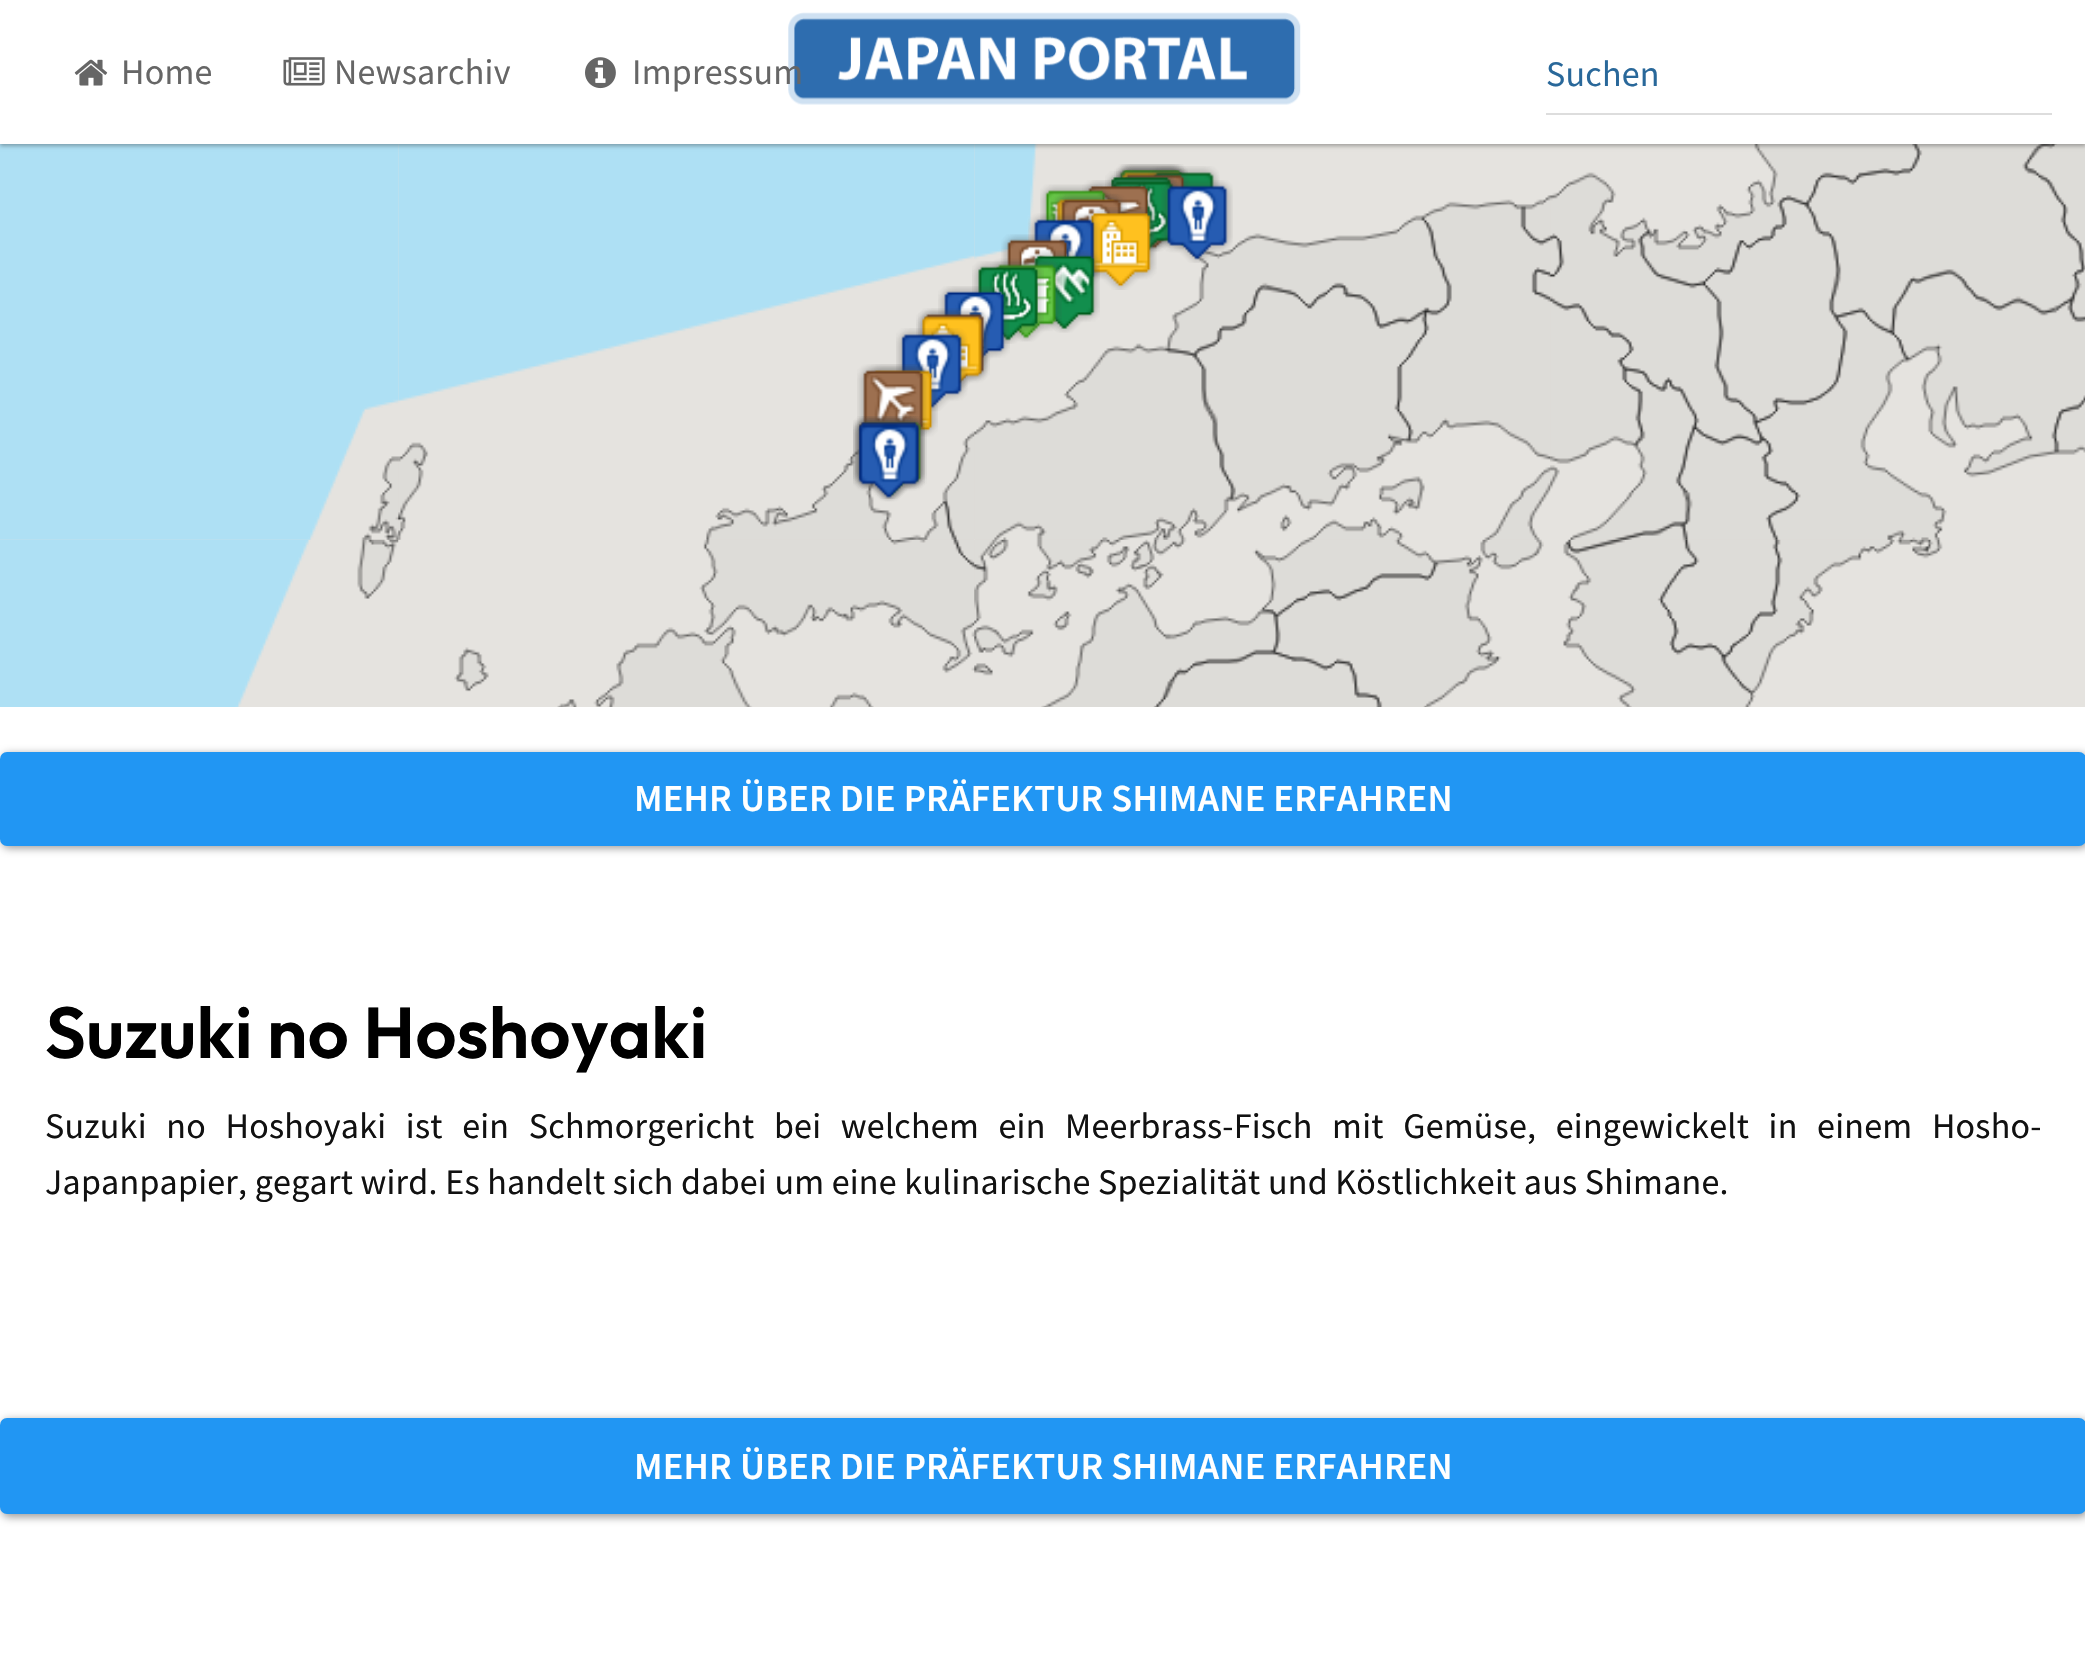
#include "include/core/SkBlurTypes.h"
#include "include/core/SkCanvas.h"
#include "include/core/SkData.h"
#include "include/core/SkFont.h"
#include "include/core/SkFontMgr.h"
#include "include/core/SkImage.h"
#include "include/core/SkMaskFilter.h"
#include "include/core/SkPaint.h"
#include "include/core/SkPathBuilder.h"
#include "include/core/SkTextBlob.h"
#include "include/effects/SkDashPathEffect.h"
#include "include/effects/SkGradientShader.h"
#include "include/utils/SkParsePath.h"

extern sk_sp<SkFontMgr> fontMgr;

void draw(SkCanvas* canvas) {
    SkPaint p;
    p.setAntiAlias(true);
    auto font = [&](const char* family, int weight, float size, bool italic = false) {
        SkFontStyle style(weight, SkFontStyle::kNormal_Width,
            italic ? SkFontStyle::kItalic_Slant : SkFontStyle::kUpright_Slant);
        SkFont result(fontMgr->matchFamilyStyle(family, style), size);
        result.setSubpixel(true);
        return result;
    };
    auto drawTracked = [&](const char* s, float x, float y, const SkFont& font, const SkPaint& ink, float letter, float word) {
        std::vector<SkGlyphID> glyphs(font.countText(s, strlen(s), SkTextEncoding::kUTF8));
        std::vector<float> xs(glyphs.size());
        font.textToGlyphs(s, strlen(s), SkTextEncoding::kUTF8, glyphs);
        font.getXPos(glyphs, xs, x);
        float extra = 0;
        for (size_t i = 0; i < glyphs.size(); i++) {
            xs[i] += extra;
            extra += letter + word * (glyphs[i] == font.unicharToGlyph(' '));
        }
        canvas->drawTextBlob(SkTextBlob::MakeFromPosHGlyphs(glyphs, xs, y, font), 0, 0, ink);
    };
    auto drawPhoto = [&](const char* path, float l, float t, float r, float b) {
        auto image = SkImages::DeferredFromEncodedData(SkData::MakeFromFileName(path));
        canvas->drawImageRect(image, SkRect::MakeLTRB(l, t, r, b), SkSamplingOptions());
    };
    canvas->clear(0xFFFFFFFF);
    p.setColor(0xFFE5E3DF);
    canvas->drawRect(SkRect::MakeLTRB(0, 144, 2085, 707), p);
    drawPhoto("media/8.png", 1550, 144, 2085, 540);
    drawPhoto("media/7.png", 974, 144, 1551, 540);
    drawPhoto("media/11.png", 974, 539, 1544, 707);
    drawPhoto("media/10.png", 454, 539, 975, 707);
    drawPhoto("media/6.png", 398, 144, 975, 540);
    drawPhoto("media/9.png", 0, 539, 399, 707);
    drawPhoto("media/5.png", 0, 144, 399, 540);
    p.setColor(0x4D000000);
    p.setMaskFilter(SkMaskFilter::MakeBlur(kNormal_SkBlurStyle, 2));
    canvas->drawRect(SkRect::MakeLTRB(0, 2, 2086, 146), p);
    p.setMaskFilter(nullptr);
    p.setColor(0xFFFFFFFF);
    canvas->drawRect(SkRect::MakeLTRB(0, 0, 2085, 144), p);
    drawPhoto("media/1.png", 788, 12, 1301, 105);
    drawPhoto("media/2.png", 74, 59, 108, 86);
    auto font1 = font("Source Sans Pro", 400, 36);
    p.setColor(0xFF666666);
    drawTracked("Home", 121, 84, font1, p, 0.23f, 0);
    drawPhoto("media/3.png", 283, 57, 325, 86);
    drawTracked("Newsarchiv", 334, 84, font1, p, 0.23f, 0);
    drawPhoto("media/4.png", 585, 57, 616, 89);
    drawTracked("Impressum", 632, 84, font1, p, 0.23f, 0);
    p.setColor(0xFFDDDDDD);
    canvas->drawRect(SkRect::MakeLTRB(1546, 113, 2052, 115), p);
    p.setColor(0xFF29689A);
    drawTracked("Suchen", 1546, 86, font1, p, 0.23f, 0);
    drawPhoto("media/12.png", 1563, 539, 1943, 707);
    drawPhoto("media/13.png", 1114, 164, 1185, 247);
    drawPhoto("media/14.png", 1116, 164, 1188, 247);
    drawPhoto("media/15.png", 1116, 164, 1188, 247);
    drawPhoto("media/16.png", 1116, 166, 1188, 250);
    drawPhoto("media/17.png", 1148, 166, 1220, 250);
    drawPhoto("media/18.png", 1119, 169, 1190, 252);
    drawPhoto("media/19.png", 1105, 171, 1177, 252);
    drawPhoto("media/20.png", 1107, 175, 1179, 258);
    drawPhoto("media/22.png", 1082, 180, 1154, 249);
    drawPhoto("media/21.png", 1040, 184, 1111, 222);
    drawPhoto("media/23.png", 1161, 180, 1233, 263);
    drawPhoto("media/24.png", 1051, 193, 1123, 276);
    drawPhoto("media/25.png", 1055, 194, 1127, 277);
    drawPhoto("media/27.png", 1084, 207, 1157, 290);
    drawPhoto("media/26.png", 1028, 213, 1100, 285);
    drawPhoto("media/28.png", 1001, 234, 1073, 267);
    drawPhoto("media/30.png", 1028, 250, 1100, 333);
    drawPhoto("media/29.png", 990, 258, 1062, 342);
    drawPhoto("media/31.png", 972, 261, 1044, 344);
    drawPhoto("media/32.png", 938, 286, 1010, 367);
    drawPhoto("media/33.png", 918, 308, 990, 391);
    drawPhoto("media/34.png", 916, 310, 988, 394);
    drawPhoto("media/36.png", 896, 328, 968, 412);
    drawPhoto("media/37.png", 866, 364, 938, 437);
    drawPhoto("media/35.png", 857, 364, 929, 436);
    drawPhoto("media/40.png", 855, 416, 927, 500);
    drawPhoto("media/38.png", 853, 416, 925, 499);
    drawPhoto("media/39.png", 853, 416, 925, 499);
    drawPhoto("media/41.png", 853, 418, 925, 502);
    p.setColor(0x66000000);
    p.setMaskFilter(SkMaskFilter::MakeBlur(kNormal_SkBlurStyle, 4.5f));
    canvas->drawRoundRect(SkRect::MakeLTRB(2, 754, 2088, 848), 7, 7, p);
    p.setMaskFilter(nullptr);
    p.setColor(0xFF2196F3);
    canvas->drawRoundRect(SkRect::MakeLTRB(0, 752, 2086, 846), 7, 7, p);
    auto font2 = font("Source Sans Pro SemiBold", 600, 38.25f);
    p.setColor(0xFFFFFFFF);
    drawTracked("MEHR ÜBER DIE PRÄFEKTUR SHIMANE ERFAHREN", 634, 811, font2, p, 0.23f, 0);
    auto font3 = font("Outfit", 600, 72);
    p.setColor(0xFF000000);
    drawTracked("Suzuki no Hoshoyaki", 45, 1058, font3, p, 0.23f, 0);
    p.setColor(0xFF111111);
    drawTracked("Suzuki no Hoshoyaki ist ein Schmorgericht bei welchem ein Meerbrass-Fisch mit Gemüse, eingewickelt in einem Hosho-", 45, 1138, font1, p, 0.23f, 12.1f);
    drawTracked("Japanpapier, gegart wird. Es handelt sich dabei um eine kulinarische Spezialität und Köstlichkeit aus Shimane.", 45, 1194, font1, p, 0.23f, 0);
    p.setColor(0x66000000);
    p.setMaskFilter(SkMaskFilter::MakeBlur(kNormal_SkBlurStyle, 4.5f));
    canvas->drawRoundRect(SkRect::MakeLTRB(2, 1420, 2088, 1517), 7, 7, p);
    p.setMaskFilter(nullptr);
    p.setColor(0xFF2196F3);
    canvas->drawRoundRect(SkRect::MakeLTRB(0, 1418, 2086, 1514), 7, 7, p);
    p.setColor(0xFFFFFFFF);
    drawTracked("MEHR ÜBER DIE PRÄFEKTUR SHIMANE ERFAHREN", 634, 1479, font2, p, 0.23f, 0);
}
